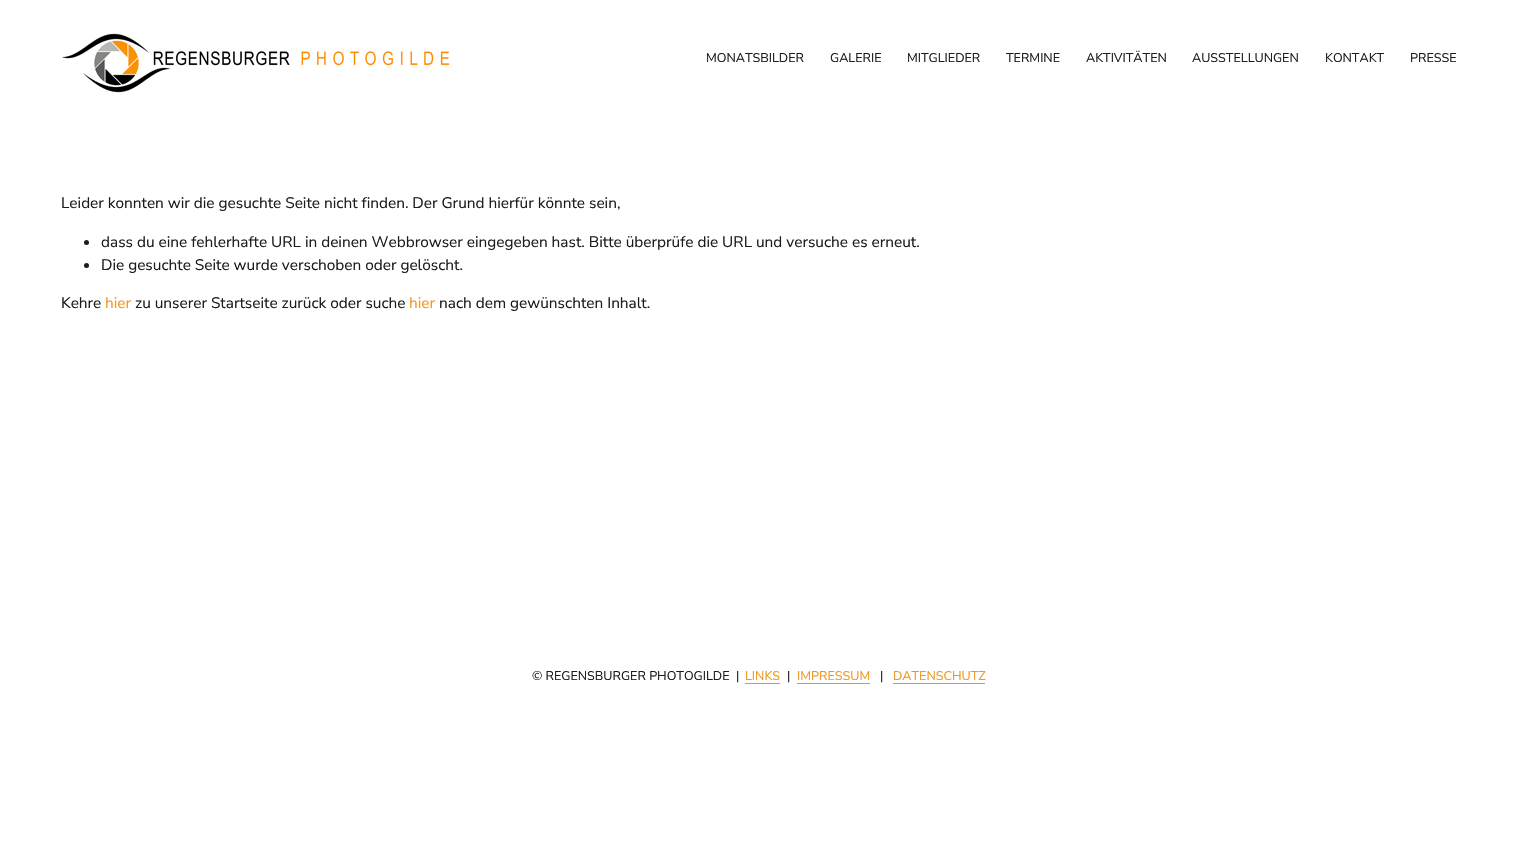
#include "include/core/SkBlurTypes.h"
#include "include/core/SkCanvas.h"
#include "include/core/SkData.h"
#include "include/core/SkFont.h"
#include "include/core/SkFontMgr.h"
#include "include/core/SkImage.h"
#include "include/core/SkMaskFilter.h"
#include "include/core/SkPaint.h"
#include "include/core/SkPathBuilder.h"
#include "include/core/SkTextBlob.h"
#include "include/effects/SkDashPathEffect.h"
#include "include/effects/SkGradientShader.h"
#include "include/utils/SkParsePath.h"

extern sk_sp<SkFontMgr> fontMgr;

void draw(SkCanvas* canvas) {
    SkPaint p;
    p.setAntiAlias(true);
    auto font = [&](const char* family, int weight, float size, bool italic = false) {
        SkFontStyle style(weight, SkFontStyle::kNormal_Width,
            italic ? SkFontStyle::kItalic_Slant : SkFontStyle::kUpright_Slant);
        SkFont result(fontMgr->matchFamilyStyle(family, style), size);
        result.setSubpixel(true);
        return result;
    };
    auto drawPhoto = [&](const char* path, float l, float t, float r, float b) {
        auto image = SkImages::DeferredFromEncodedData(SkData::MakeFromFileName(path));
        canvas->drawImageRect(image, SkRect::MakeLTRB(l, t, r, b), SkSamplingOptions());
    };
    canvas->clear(0xFFFFFFFF);
    drawPhoto("media/1.png", 62, 33, 450, 93);
    auto font1 = font("Nunito Sans", 400, 12.6f);
    p.setColor(0xFF1C1C1C);
    {
        const struct { const char* s; float x, y; } items[] = {
            {"MONATSBILDER", 706, 62},
            {"GALERIE", 830, 62},
            {"MITGLIEDER", 907, 62},
            {"TERMINE", 1006, 62},
            {"AKTIVITÄTEN", 1086, 62},
            {"AUSSTELLUNGEN", 1192, 62},
            {"KONTAKT", 1325, 62},
            {"PRESSE", 1410, 62},
        };
        for (auto [s, x, y] : items) {
            canvas->drawString(s, x, y, font1, p);
        }
    }
    auto font2 = font("Nunito Sans", 400, 15.4f);
    canvas->drawString("Leider konnten wir die gesuchte Seite nicht finden. Der Grund hierfür könnte sein,", 61, 208, font2, p);
    canvas->drawCircle(86.5f, 242.5f, 2.5f, p);
    canvas->drawString("dass du eine fehlerhafte URL in deinen Webbrowser eingegeben hast. Bitte überprüfe die URL und versuche es erneut.", 101, 247, font2, p);
    canvas->drawCircle(86.5f, 265.5f, 2.5f, p);
    canvas->drawString("Die gesuchte Seite wurde verschoben oder gelöscht.", 101, 270, font2, p);
    canvas->drawString("Kehre", 61, 308, font2, p);
    p.setColor(0xFFF0971C);
    canvas->drawString("hier", 105, 308, font2, p);
    p.setColor(0xFF1C1C1C);
    canvas->drawString("zu unserer Startseite zurück oder suche", 135, 308, font2, p);
    p.setColor(0xFFF0971C);
    canvas->drawString("hier", 409, 308, font2, p);
    p.setColor(0xFF1C1C1C);
    canvas->drawString("nach dem gewünschten Inhalt.", 439, 308, font2, p);
    canvas->drawString("© REGENSBURGER PHOTOGILDE  |", 532, 680, font1, p);
    p.setColor(0xFFF0971C);
    canvas->drawString("LINKS", 745, 680, font1, p);
    canvas->drawRect(SkRect::MakeLTRB(745, 683, 780, 684), p);
    p.setColor(0xFF1C1C1C);
    canvas->drawString("|", 787, 680, font1, p);
    p.setColor(0xFFF0971C);
    canvas->drawString("IMPRESSUM", 797, 680, font1, p);
    canvas->drawRect(SkRect::MakeLTRB(797, 683, 870, 684), p);
    p.setColor(0xFF1C1C1C);
    canvas->drawString("|", 880, 680, font1, p);
    p.setColor(0xFFF0971C);
    canvas->drawString("DATENSCHUTZ", 893, 680, font1, p);
    canvas->drawRect(SkRect::MakeLTRB(893, 683, 985, 684), p);
}
